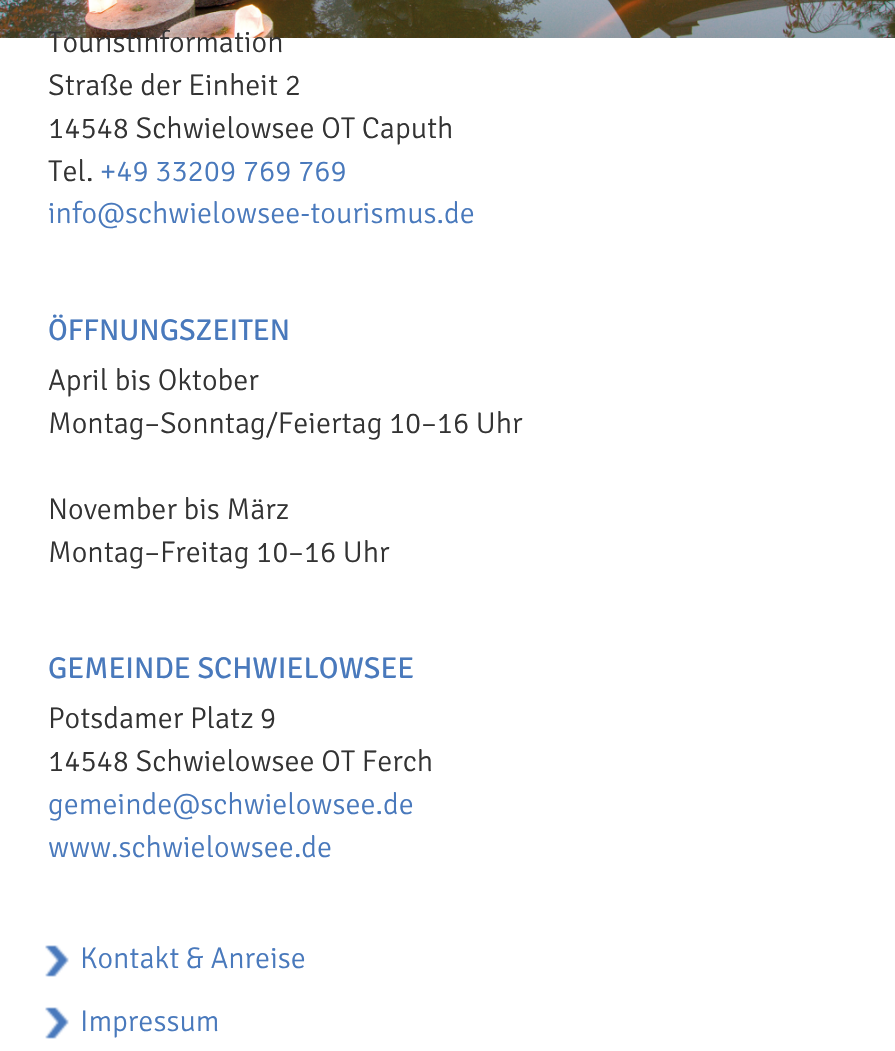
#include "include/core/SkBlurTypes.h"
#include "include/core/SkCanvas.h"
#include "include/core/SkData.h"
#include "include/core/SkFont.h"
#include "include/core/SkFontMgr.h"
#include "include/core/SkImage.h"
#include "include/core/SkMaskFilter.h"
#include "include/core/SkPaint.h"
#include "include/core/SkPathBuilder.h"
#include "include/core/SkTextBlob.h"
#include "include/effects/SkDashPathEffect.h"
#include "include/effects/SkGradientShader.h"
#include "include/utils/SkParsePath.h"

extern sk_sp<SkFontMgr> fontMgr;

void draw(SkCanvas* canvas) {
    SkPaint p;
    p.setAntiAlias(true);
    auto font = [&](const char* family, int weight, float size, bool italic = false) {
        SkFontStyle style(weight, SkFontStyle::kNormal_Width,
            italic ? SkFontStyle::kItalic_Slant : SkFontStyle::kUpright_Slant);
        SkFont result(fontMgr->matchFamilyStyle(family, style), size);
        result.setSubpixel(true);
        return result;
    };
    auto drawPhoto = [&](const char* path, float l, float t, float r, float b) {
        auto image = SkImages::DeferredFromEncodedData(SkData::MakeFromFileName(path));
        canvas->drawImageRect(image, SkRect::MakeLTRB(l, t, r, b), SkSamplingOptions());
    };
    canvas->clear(0xFFFFFFFF);
    drawPhoto("media/1.png", 0, 0, 895, 38);
    auto font1 = font("Signika Negative", 300, 30);
    p.setColor(0xFF333333);
    {
        const struct { const char* s; float x, y; } items[] = {
            {"Touristinformation", 48, 52},
            {"Straße der Einheit 2", 48, 95},
            {"14548 Schwielowsee OT Caputh", 48, 138},
            {"Tel.", 48, 181},
        };
        for (auto [s, x, y] : items) {
            canvas->drawString(s, x, y, font1, p);
        }
    }
    p.setColor(0xFF4979BC);
    canvas->drawString("+49 33209 769 769", 100, 181, font1, p);
    canvas->drawString("info@schwielowsee-tourismus.de", 48, 223, font1, p);
    auto font2 = font("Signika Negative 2", 300, 30);
    canvas->drawString("ÖFFNUNGSZEITEN", 48, 340, font2, p);
    p.setColor(0xFF333333);
    {
        const struct { const char* s; float x, y; } items[] = {
            {"April bis Oktober", 48, 390},
            {"Montag–Sonntag/Feiertag 10–16 Uhr", 48, 433},
            {"November bis März", 48, 519},
            {"Montag–Freitag 10–16 Uhr", 48, 562},
        };
        for (auto [s, x, y] : items) {
            canvas->drawString(s, x, y, font1, p);
        }
    }
    p.setColor(0xFF4979BC);
    canvas->drawString("GEMEINDE SCHWIELOWSEE", 48, 678, font2, p);
    p.setColor(0xFF333333);
    canvas->drawString("Potsdamer Platz 9", 48, 728, font1, p);
    canvas->drawString("14548 Schwielowsee OT Ferch", 48, 771, font1, p);
    p.setColor(0xFF4979BC);
    canvas->drawString("gemeinde@schwielowsee.de", 48, 814, font1, p);
    canvas->drawString("www.schwielowsee.de", 48, 857, font1, p);
    drawPhoto("media/2.png", 45, 945, 69, 977);
    canvas->drawString("Kontakt & Anreise", 80, 968, font1, p);
    drawPhoto("media/2.png", 45, 1007, 69, 1039);
    canvas->drawString("Impressum", 80, 1031, font1, p);
}
